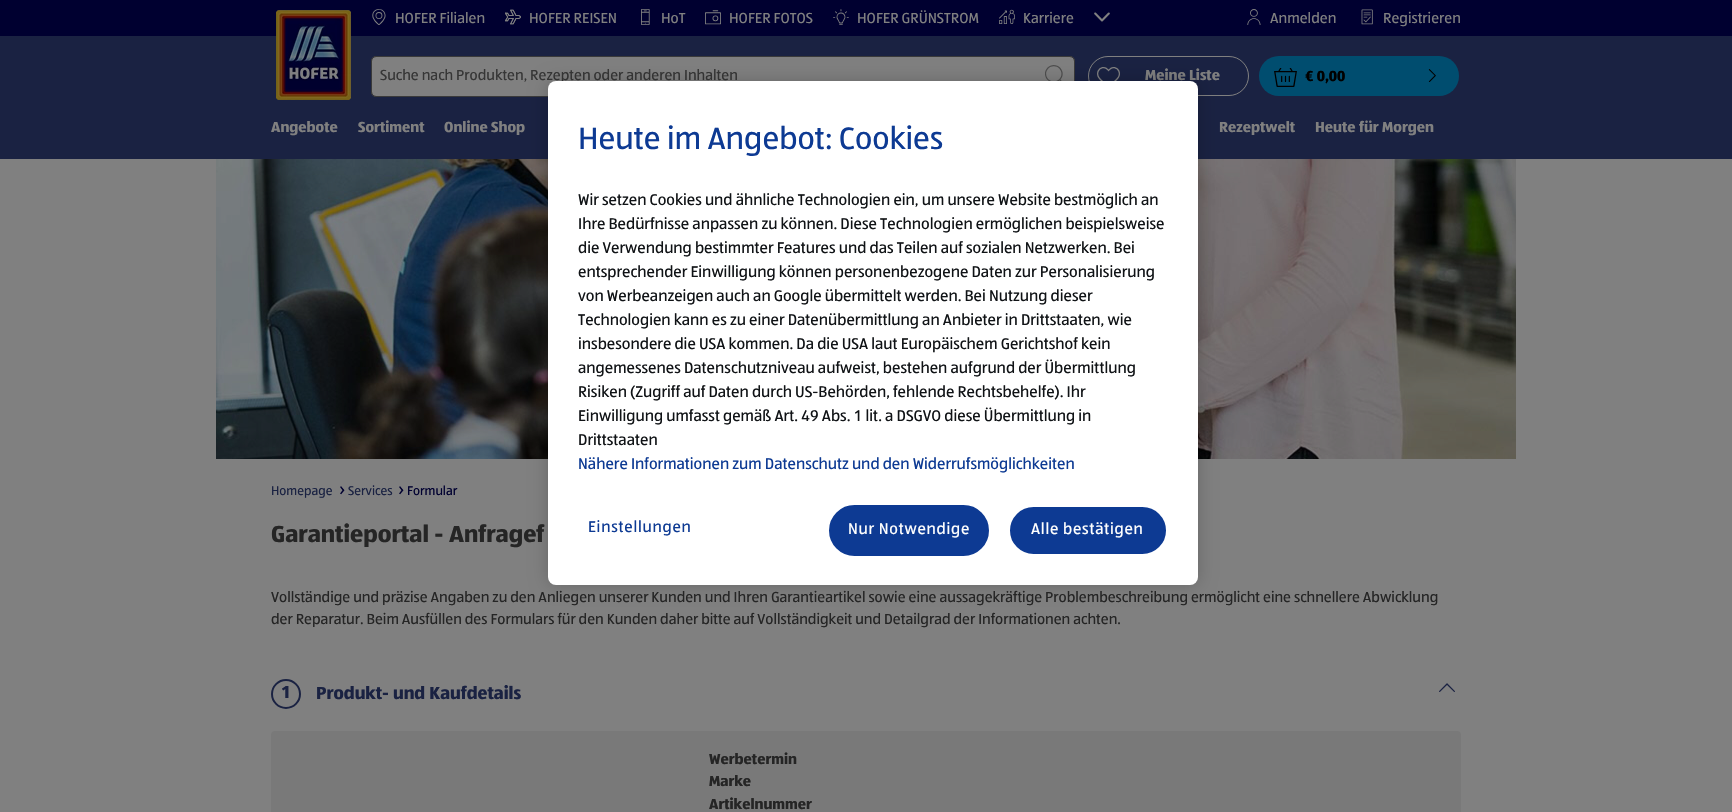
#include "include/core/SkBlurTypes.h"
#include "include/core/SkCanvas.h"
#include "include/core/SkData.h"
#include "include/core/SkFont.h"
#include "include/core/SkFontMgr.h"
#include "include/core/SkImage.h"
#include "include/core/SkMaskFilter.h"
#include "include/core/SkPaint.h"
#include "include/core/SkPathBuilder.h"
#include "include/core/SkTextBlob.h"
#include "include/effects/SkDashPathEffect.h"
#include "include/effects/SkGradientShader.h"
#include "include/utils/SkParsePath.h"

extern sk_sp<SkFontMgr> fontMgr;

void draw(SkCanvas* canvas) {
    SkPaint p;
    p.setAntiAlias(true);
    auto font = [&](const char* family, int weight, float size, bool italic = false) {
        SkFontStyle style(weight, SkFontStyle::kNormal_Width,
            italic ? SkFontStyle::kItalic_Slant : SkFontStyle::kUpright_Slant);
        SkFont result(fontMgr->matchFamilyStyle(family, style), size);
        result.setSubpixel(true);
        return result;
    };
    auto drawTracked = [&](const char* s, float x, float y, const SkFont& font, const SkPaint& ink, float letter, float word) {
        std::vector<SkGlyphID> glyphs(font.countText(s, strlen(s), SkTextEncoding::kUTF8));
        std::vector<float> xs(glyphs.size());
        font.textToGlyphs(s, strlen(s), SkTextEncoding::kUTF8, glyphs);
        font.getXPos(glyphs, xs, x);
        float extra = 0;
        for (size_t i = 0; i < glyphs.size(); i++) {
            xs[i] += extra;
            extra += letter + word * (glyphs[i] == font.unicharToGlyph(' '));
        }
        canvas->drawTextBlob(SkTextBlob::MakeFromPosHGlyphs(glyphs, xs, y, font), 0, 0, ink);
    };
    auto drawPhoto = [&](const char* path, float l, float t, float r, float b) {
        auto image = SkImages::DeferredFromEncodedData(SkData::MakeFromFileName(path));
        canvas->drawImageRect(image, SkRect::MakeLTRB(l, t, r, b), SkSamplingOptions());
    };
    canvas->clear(0xFF808080);
    p.setColor(0xFF000030);
    canvas->drawRect(SkRect::MakeLTRB(0, 0, 1732, 36), p);
    p.setColor(0xFF1A2242);
    canvas->drawRect(SkRect::MakeLTRB(0, 36, 1732, 159), p);
    drawPhoto("media/1.png", 276, 10, 351, 100);
    drawPhoto("media/2.png", 372, 9, 386, 25);
    auto font1 = font("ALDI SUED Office", 400, 15);
    p.setColor(0xFF808080);
    canvas->drawString("HOFER Filialen", 395, 23, font1, p);
    drawPhoto("media/3.png", 505, 9, 521, 25);
    canvas->drawString("HOFER REISEN", 529, 23, font1, p);
    drawPhoto("media/4.png", 641, 9, 650, 25);
    canvas->drawString("HoT", 661, 23, font1, p);
    drawPhoto("media/5.png", 705, 10, 721, 25);
    canvas->drawString("HOFER FOTOS", 729, 23, font1, p);
    drawPhoto("media/6.png", 833, 9, 849, 25);
    canvas->drawString("HOFER GRÜNSTROM", 857, 23, font1, p);
    drawPhoto("media/7.png", 999, 9, 1015, 24);
    canvas->drawString("Karriere", 1023, 23, font1, p);
    drawPhoto("media/8.png", 1094, 12, 1110, 22);
    drawPhoto("media/9.png", 1247, 9, 1261, 25);
    canvas->drawString("Anmelden", 1270, 23, font1, p);
    drawPhoto("media/10.png", 1361, 9, 1373, 25);
    canvas->drawString("Registrieren", 1383, 23, font1, p);
    canvas->drawRoundRect(SkRect::MakeLTRB(371.5f, 56.5f, 1074.5f, 96.5f), 4.5f, 4.5f, p);
    p.setStyle(SkPaint::kStroke_Style);
    p.setStrokeWidth(1);
    p.setColor(0xFF3A3A3A);
    canvas->drawRoundRect(SkRect::MakeLTRB(371.5f, 56.5f, 1074.5f, 96.5f), 4.5f, 4.5f, p);
    canvas->drawRoundRect(SkRect::MakeLTRB(371.5f, 56.5f, 1074.5f, 96.5f), 4.5f, 4.5f, p);
    p.setStyle(SkPaint::kFill_Style);
    p.setColor(0xFF363636);
    canvas->drawString("Suche nach Produkten, Rezepten oder anderen Inhalten", 380, 80, font1, p);
    drawPhoto("media/11.png", 1045, 65, 1063, 81);
    p.setStyle(SkPaint::kStroke_Style);
    p.setColor(0xFF808080);
    canvas->drawRoundRect(SkRect::MakeLTRB(1088.5f, 56.5f, 1248.5f, 95.5f), 19.5f, 19.5f, p);
    drawPhoto("media/12.png", 1097, 67, 1120, 81);
    auto font2 = font("ALDI SUED Office", 700, 15);
    p.setStyle(SkPaint::kFill_Style);
    canvas->drawString("Meine Liste", 1145, 80, font2, p);
    p.setColor(0xFF004D6F);
    canvas->drawRoundRect(SkRect::MakeLTRB(1259, 56, 1459, 96), 20, 20, p);
    drawPhoto("media/13.png", 1274, 68, 1297, 87);
    p.setColor(0xFF000000);
    canvas->drawString("€ 0,00", 1305, 81, font2, p);
    drawPhoto("media/14.png", 1428, 69, 1436, 82);
    p.setColor(0xFF808080);
    {
        const struct { const char* s; float x, y; } items[] = {
            {"Angebote", 271, 132},
            {"Sortiment", 358, 132},
            {"Online Shop", 444, 132},
            {"Rezeptwelt", 1219, 132},
            {"Heute für Morgen", 1315, 132},
        };
        for (auto [s, x, y] : items) {
            canvas->drawString(s, x, y, font2, p);
        }
    }
    drawPhoto("media/15.png", 216, 159, 1516, 459);
    p.setColor(0x33000000);
    p.setMaskFilter(SkMaskFilter::MakeBlur(kNormal_SkBlurStyle, 9));
    canvas->drawRoundRect(SkRect::MakeLTRB(548, 81, 1198, 585), 8, 8, p);
    p.setMaskFilter(nullptr);
    p.setColor(0xFFFFFFFF);
    canvas->drawRoundRect(SkRect::MakeLTRB(548, 81, 1198, 585), 8, 8, p);
    auto font3 = font("ALDI SUED Office", 400, 32);
    p.setColor(0xFF0D3A93);
    canvas->drawString("Heute im Angebot: Cookies", 578, 149, font3, p);
    auto font4 = font("ALDI SUED Office", 400, 16);
    p.setColor(0xFF101316);
    {
        const struct { const char* s; float x, y; } items[] = {
            {"Wir setzen Cookies und ähnliche Technologien ein, um unsere Website bestmöglich an", 578, 205},
            {"Ihre Bedürfnisse anpassen zu können. Diese Technologien ermöglichen beispielsweise", 578, 229},
            {"die Verwendung bestimmter Features und das Teilen auf sozialen Netzwerken. Bei", 578, 253},
            {"entsprechender Einwilligung können personenbezogene Daten zur Personalisierung", 578, 277},
            {"von Werbeanzeigen auch an Google übermittelt werden. Bei Nutzung dieser", 578, 301},
            {"Technologien kann es zu einer Datenübermittlung an Anbieter in Drittstaaten, wie", 578, 325},
            {"insbesondere die USA kommen. Da die USA laut Europäischem Gerichtshof kein", 578, 349},
            {"angemessenes Datenschutzniveau aufweist, bestehen aufgrund der Übermittlung", 578, 373},
            {"Risiken (Zugriff auf Daten durch US-Behörden, fehlende Rechtsbehelfe). Ihr", 578, 397},
            {"Einwilligung umfasst gemäß Art. 49 Abs. 1 lit. a DSGVO diese Übermittlung in", 578, 421},
            {"Drittstaaten", 578, 445},
        };
        for (auto [s, x, y] : items) {
            canvas->drawString(s, x, y, font4, p);
        }
    }
    p.setColor(0xFF0D3A93);
    canvas->drawString("Nähere Informationen zum Datenschutz und den Widerrufsmöglichkeiten", 578, 469, font4, p);
    drawTracked("Einstellungen", 588, 532, font4, p, 0.75f, 0);
    canvas->drawRoundRect(SkRect::MakeLTRB(830, 506, 988, 555), 24.5f, 24.5f, p);
    p.setStyle(SkPaint::kStroke_Style);
    p.setStrokeWidth(2);
    canvas->drawRoundRect(SkRect::MakeLTRB(830, 506, 988, 555), 24.5f, 24.5f, p);
    p.setStyle(SkPaint::kFill_Style);
    p.setColor(0xFFFFFFFF);
    drawTracked("Nur Notwendige", 848, 534, font4, p, 0.75f, 0);
    p.setColor(0xFF0D3A93);
    canvas->drawRoundRect(SkRect::MakeLTRB(1009, 506, 1167, 555), 24.5f, 24.5f, p);
    p.setStyle(SkPaint::kStroke_Style);
    p.setColor(0xFFFFFFFF);
    canvas->drawRoundRect(SkRect::MakeLTRB(1009, 506, 1167, 555), 24.5f, 24.5f, p);
    p.setStyle(SkPaint::kFill_Style);
    drawTracked("Alle bestätigen", 1031, 534, font4, p, 0.75f, 0);
    auto font5 = font("ALDI SUED Office", 400, 13);
    p.setColor(0xFF1A2242);
    canvas->drawString("Homepage", 271, 495, font5, p);
    auto font6 = font("ALDI SUED Office", 400, 20);
    p.setColor(0xFF000030);
    canvas->drawString("›", 339, 496, font6, p);
    p.setColor(0xFF1A2242);
    canvas->drawString("Services", 348, 495, font5, p);
    p.setColor(0xFF000030);
    canvas->drawString("›", 398, 496, font6, p);
    canvas->drawString("Formular", 407, 495, font5, p);
    auto font7 = font("ALDI SUED Office", 700, 24);
    p.setColor(0xFF252525);
    canvas->drawString("Garantieportal - Anfragef", 271, 542, font7, p);
    canvas->drawString("Vollständige und präzise Angaben zu den Anliegen unserer Kunden und Ihren Garantieartikel sowie eine aussagekräftige Problembeschreibung ermöglicht eine schnellere Abwicklung", 271, 602, font1, p);
    canvas->drawString("der Reparatur. Beim Ausfüllen des Formulars für den Kunden daher bitte auf Vollständigkeit und Detailgrad der Informationen achten.", 271, 624, font1, p);
    p.setStyle(SkPaint::kStroke_Style);
    p.setColor(0xFF1A2242);
    canvas->drawCircle(286, 694, 14, p);
    auto font8 = font("ALDI SUED Office", 700, 18);
    p.setStyle(SkPaint::kFill_Style);
    canvas->drawString("1", 281, 698, font8, p);
    canvas->drawString("Produkt- und Kaufdetails", 316, 699, font8, p);
    drawPhoto("media/16.png", 1439, 683, 1455, 692);
    p.setColor(0xFF797979);
    canvas->drawRoundRect(SkRect::MakeLTRB(271, 731, 1461, 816), 4, 4, p);
    p.setColor(0xFF252525);
    {
        const struct { const char* s; float x, y; } items[] = {
            {"Werbetermin", 709, 764},
            {"Marke", 709, 786},
            {"Artikelnummer", 709, 809},
        };
        for (auto [s, x, y] : items) {
            canvas->drawString(s, x, y, font2, p);
        }
    }
}
